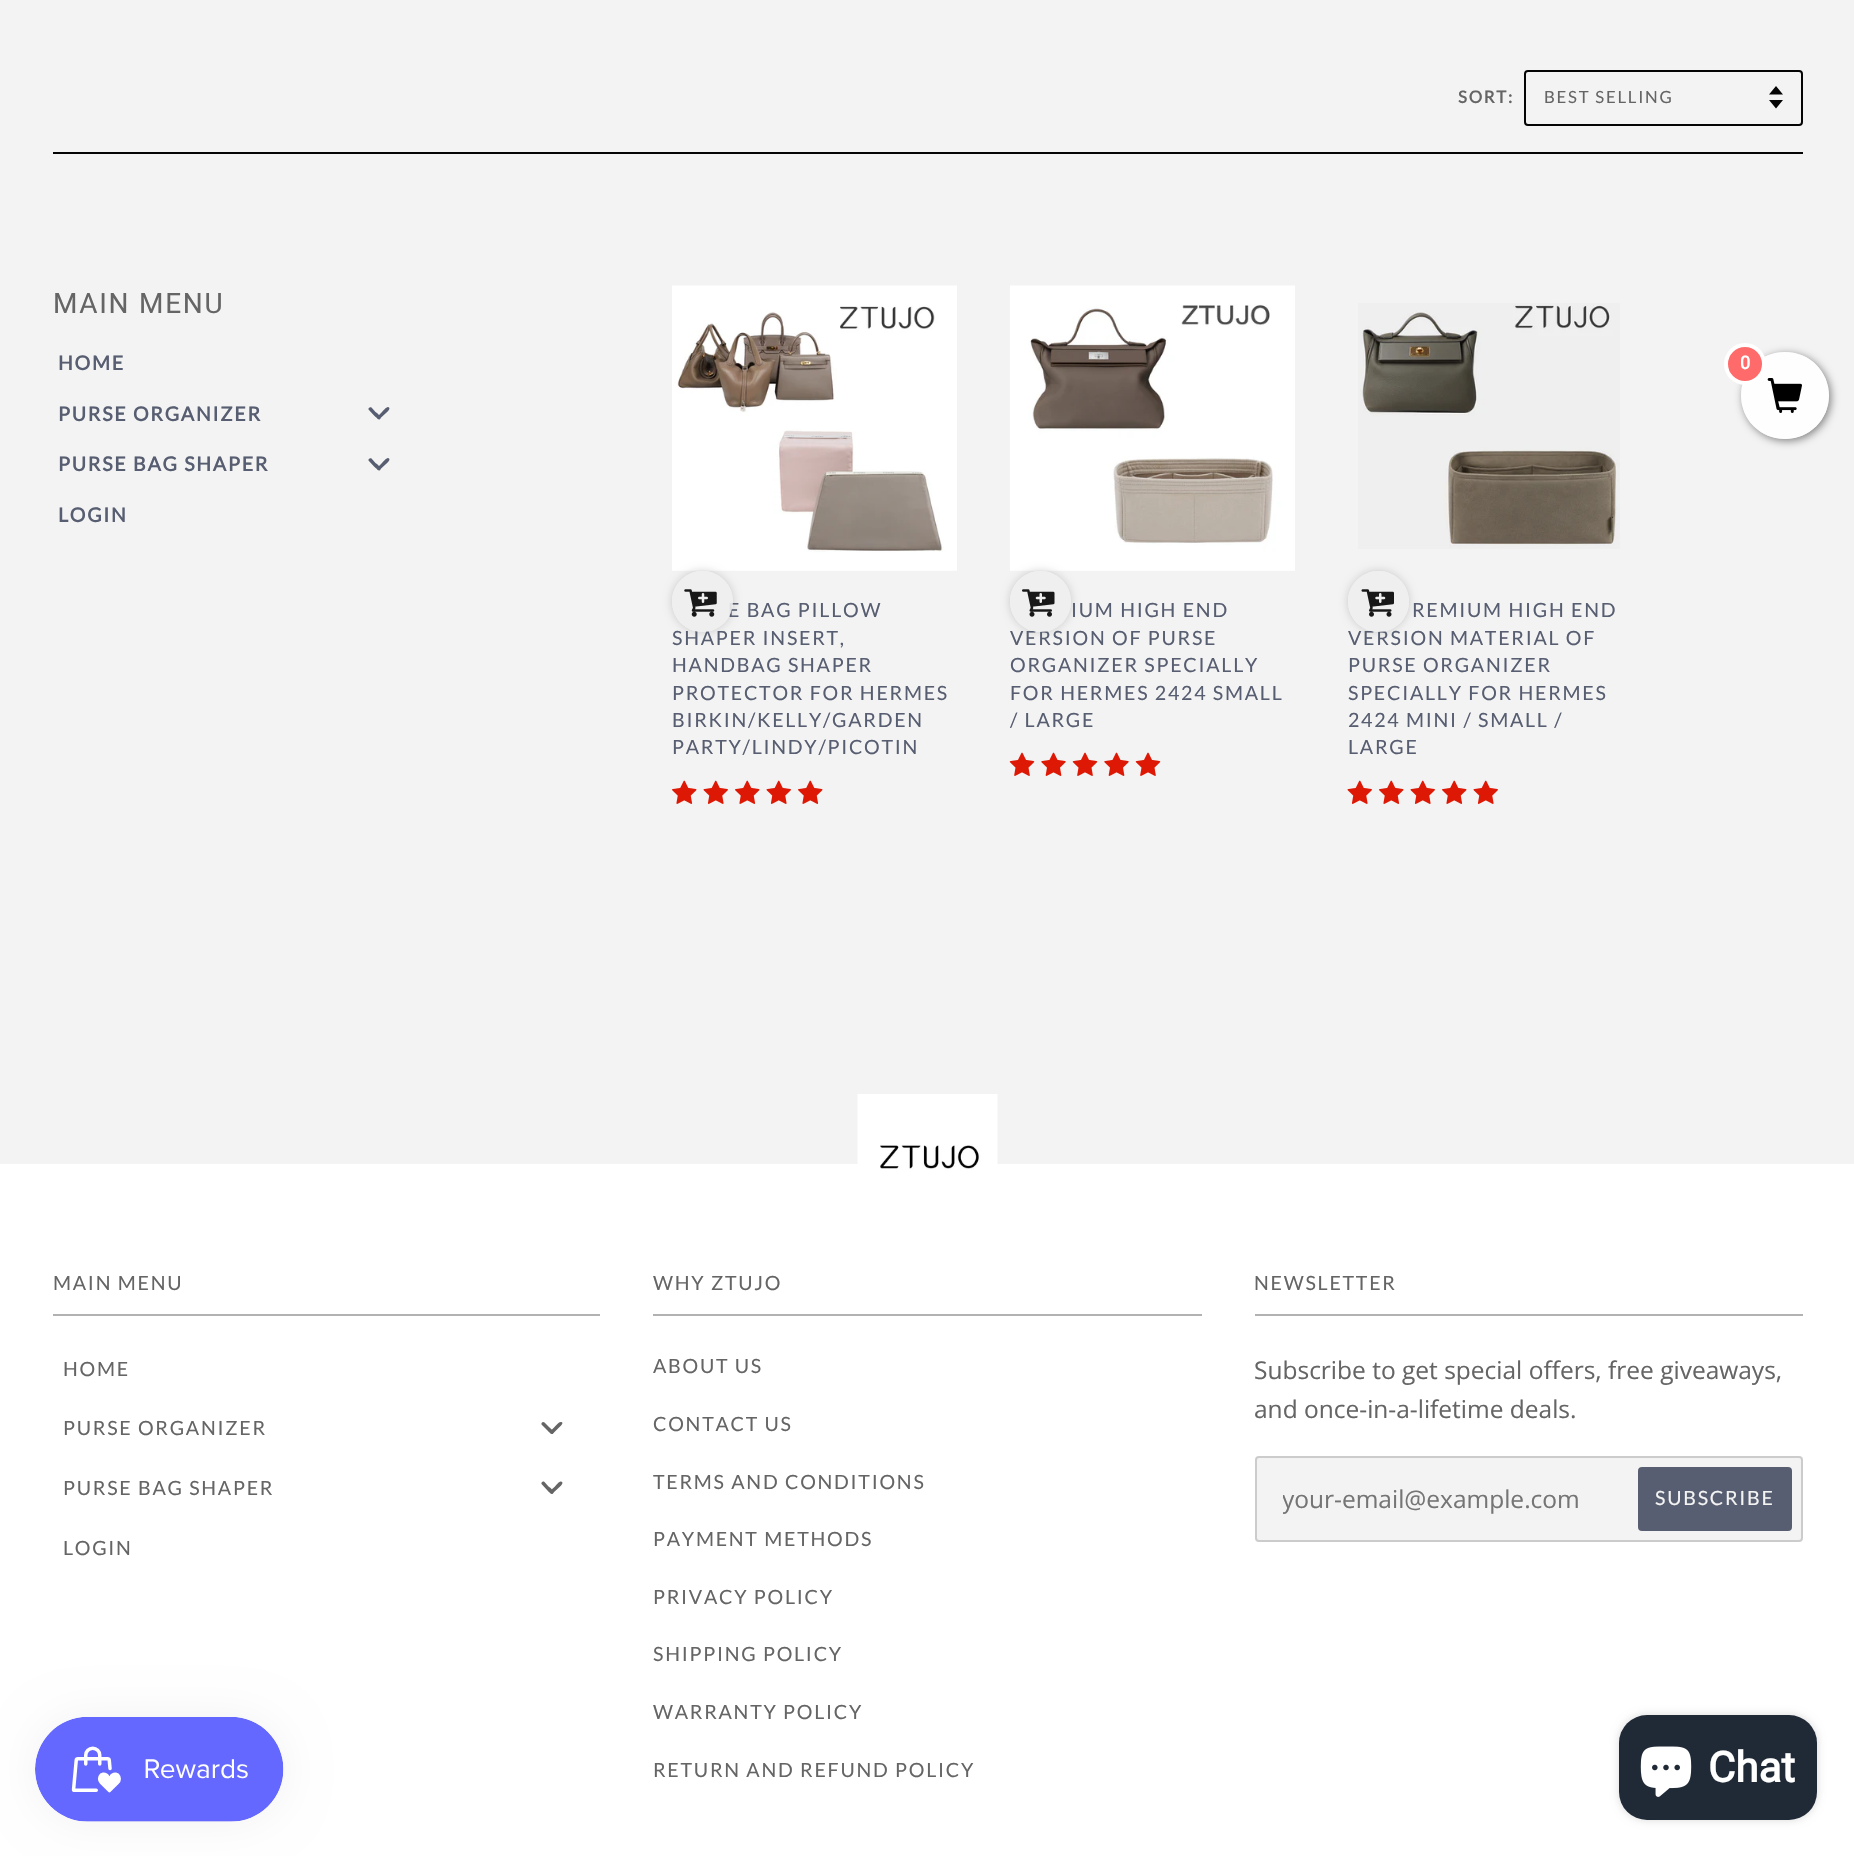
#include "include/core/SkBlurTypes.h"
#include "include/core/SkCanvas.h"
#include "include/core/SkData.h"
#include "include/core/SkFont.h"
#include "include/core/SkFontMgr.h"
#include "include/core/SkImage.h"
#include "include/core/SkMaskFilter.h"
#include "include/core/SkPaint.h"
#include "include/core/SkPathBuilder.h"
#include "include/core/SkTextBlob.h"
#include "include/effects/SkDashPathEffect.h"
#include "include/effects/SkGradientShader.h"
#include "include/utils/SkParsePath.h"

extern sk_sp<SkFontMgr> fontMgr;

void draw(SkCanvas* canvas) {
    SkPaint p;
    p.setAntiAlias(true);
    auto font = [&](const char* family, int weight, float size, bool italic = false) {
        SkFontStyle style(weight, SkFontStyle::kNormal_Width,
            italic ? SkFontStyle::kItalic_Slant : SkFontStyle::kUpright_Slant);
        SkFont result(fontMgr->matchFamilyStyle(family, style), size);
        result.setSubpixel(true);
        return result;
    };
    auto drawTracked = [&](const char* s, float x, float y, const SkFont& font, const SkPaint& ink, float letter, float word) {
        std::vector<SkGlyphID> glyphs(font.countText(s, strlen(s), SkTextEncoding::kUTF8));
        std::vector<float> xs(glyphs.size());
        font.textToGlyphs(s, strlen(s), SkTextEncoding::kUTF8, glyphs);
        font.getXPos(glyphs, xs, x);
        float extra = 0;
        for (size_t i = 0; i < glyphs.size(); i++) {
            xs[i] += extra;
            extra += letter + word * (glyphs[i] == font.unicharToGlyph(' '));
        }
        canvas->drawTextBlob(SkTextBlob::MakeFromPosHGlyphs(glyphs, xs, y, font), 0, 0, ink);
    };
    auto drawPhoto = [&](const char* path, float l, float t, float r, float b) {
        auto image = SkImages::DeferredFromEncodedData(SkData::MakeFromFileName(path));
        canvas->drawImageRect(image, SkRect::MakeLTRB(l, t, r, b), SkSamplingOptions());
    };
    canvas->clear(0xFFF3F3F3);
    auto font1 = font("Lato", 700, 16.75f);
    p.setColor(0xFF656565);
    drawTracked("SORT:", 1458, 103, font1, p, 1.75f, 0);
    p.setColor(0xFF050404);
    canvas->drawPath(SkPathBuilder().moveTo(1769, 100).lineTo(1776, 108.5f).lineTo(1783, 100).close().moveTo(1776, 86).lineTo(1769, 94.5f).lineTo(1783, 94.5f).close().detach(), p);
    p.setStyle(SkPaint::kStroke_Style);
    p.setStrokeWidth(2);
    canvas->drawRoundRect(SkRect::MakeLTRB(1525, 71, 1802, 125), 3, 3, p);
    auto font2 = font("Lato", 400, 16.75f);
    p.setStyle(SkPaint::kFill_Style);
    p.setColor(0xFF656565);
    drawTracked("BEST SELLING", 1544, 103, font2, p, 1.75f, 0);
    p.setColor(0xFF050404);
    canvas->drawRect(SkRect::MakeLTRB(53, 152, 1803, 154), p);
    auto font3 = font("Roboto", 400, 28);
    p.setColor(0xFF656565);
    drawTracked("MAIN MENU", 53, 313, font3, p, 1.75f, 0);
    auto font4 = font("Lato", 700, 19.6f);
    p.setColor(0xFF585E71);
    drawTracked("HOME", 58, 370, font4, p, 1.75f, 0);
    drawTracked("PURSE ORGANIZER", 58, 421, font4, p, 1.75f, 0);
    canvas->drawPath(SkPathBuilder().moveTo(371.5f, 407.5f).lineTo(375.5f, 412).cubicTo(377, 413, 381, 416, 380.5f, 418).cubicTo(380, 422, 375.5f, 416.5f, 374.5f, 416).lineTo(368.5f, 409.5f).cubicTo(368, 408, 370, 406.5f, 371.5f, 407.5f).close().detach(), p);
    canvas->drawPath(SkPathBuilder().moveTo(377.5f, 416.5f).lineTo(382, 412).cubicTo(383, 411, 386, 407, 388, 407).cubicTo(392, 408, 386.5f, 412.5f, 386, 413).lineTo(379.5f, 419).cubicTo(378, 420, 376.5f, 417.5f, 377.5f, 416.5f).close().detach(), p);
    drawTracked("PURSE BAG SHAPER", 58, 471, font4, p, 1.75f, 0);
    canvas->drawPath(SkPathBuilder().moveTo(371.5f, 458.5f).lineTo(375.5f, 463).cubicTo(377, 464, 381, 467, 380.5f, 469).cubicTo(380, 473, 375.5f, 467.5f, 374.5f, 467).lineTo(368.5f, 460.5f).cubicTo(368, 459, 370, 457.5f, 371.5f, 458.5f).close().detach(), p);
    canvas->drawPath(SkPathBuilder().moveTo(377.5f, 467.5f).lineTo(382, 463).cubicTo(383, 462, 386, 458, 388, 458).cubicTo(392, 459, 386.5f, 463.5f, 386, 464).lineTo(379.5f, 470).cubicTo(378, 471, 376.5f, 468.5f, 377.5f, 467.5f).close().detach(), p);
    drawTracked("LOGIN", 58, 522, font4, p, 1.75f, 0);
    drawPhoto("media/1.png", 672, 285, 957, 571);
    canvas->save();
    canvas->clipPath(SkPathBuilder(SkPathFillType::kEvenOdd).moveTo(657, 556).lineTo(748, 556).lineTo(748, 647).lineTo(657, 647).close().moveTo(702.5f, 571).cubicTo(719.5f, 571, 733, 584.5f, 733, 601.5f).cubicTo(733, 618.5f, 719.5f, 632, 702.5f, 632).cubicTo(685.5f, 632, 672, 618.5f, 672, 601.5f).cubicTo(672, 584.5f, 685.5f, 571, 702.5f, 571).close().detach(), true);
    p.setColor(0x2E000000);
    p.setMaskFilter(SkMaskFilter::MakeBlur(kNormal_SkBlurStyle, 4.5f));
    canvas->drawRoundRect(SkRect::MakeLTRB(672, 571, 733, 632), 30.5f, 30.5f, p);
    p.setMaskFilter(nullptr);
    canvas->restore();
    auto font5 = font("Lato", 400, 19.6f);
    p.setColor(0xFF585E71);
    drawTracked("E BAG PILLOW", 728, 617, font5, p, 1.75f, 0);
    drawTracked("SHAPER INSERT,", 672, 645, font5, p, 1.75f, 0);
    p.setColor(0xE6EEEEEE);
    canvas->drawCircle(702.5f, 601.5f, 30.5f, p);
    drawPhoto("media/2.png", 684, 589, 717, 617);
    p.setColor(0xFF585E71);
    {
        const struct { const char* s; float x, y; } items[] = {
            {"HANDBAG SHAPER", 672, 672},
            {"PROTECTOR FOR HERMES", 672, 700},
            {"BIRKIN/KELLY/GARDEN", 672, 727},
            {"PARTY/LINDY/PICOTIN", 672, 754},
        };
        for (auto [s, x, y] : items) {
            drawTracked(s, x, y, font5, p, 1.75f, 0);
        }
    }
    drawPhoto("media/3.png", 672, 780, 697, 804);
    drawPhoto("media/4.png", 703, 780, 728, 804);
    drawPhoto("media/3.png", 735, 780, 760, 804);
    drawPhoto("media/4.png", 766, 780, 791, 804);
    drawPhoto("media/3.png", 798, 780, 823, 804);
    drawPhoto("media/5.png", 1010, 285, 1295, 571);
    canvas->save();
    canvas->clipPath(SkPathBuilder(SkPathFillType::kEvenOdd).moveTo(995, 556).lineTo(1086, 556).lineTo(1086, 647).lineTo(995, 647).close().moveTo(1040.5f, 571).cubicTo(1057.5f, 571, 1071, 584.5f, 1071, 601.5f).cubicTo(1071, 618.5f, 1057.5f, 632, 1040.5f, 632).cubicTo(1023.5f, 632, 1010, 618.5f, 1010, 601.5f).cubicTo(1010, 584.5f, 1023.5f, 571, 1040.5f, 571).close().detach(), true);
    p.setColor(0x2E000000);
    p.setMaskFilter(SkMaskFilter::MakeBlur(kNormal_SkBlurStyle, 4.5f));
    canvas->drawRoundRect(SkRect::MakeLTRB(1010, 571, 1071, 632), 30.5f, 30.5f, p);
    p.setMaskFilter(nullptr);
    canvas->restore();
    p.setColor(0xFF585E71);
    drawTracked("VERSION OF PURSE", 1010, 645, font5, p, 1.75f, 0);
    p.setColor(0xE6EEEEEE);
    canvas->drawCircle(1040.5f, 601.5f, 30.5f, p);
    drawPhoto("media/6.png", 1022, 589, 1055, 617);
    p.setColor(0xFF585E71);
    {
        const struct { const char* s; float x, y; } items[] = {
            {"IUM HIGH END", 1071, 617},
            {"ORGANIZER SPECIALLY", 1010, 672},
            {"FOR HERMES 2424 SMALL", 1010, 700},
            {"/ LARGE", 1010, 727},
        };
        for (auto [s, x, y] : items) {
            drawTracked(s, x, y, font5, p, 1.75f, 0);
        }
    }
    drawPhoto("media/7.png", 1009, 752, 1035, 776);
    drawPhoto("media/8.png", 1041, 752, 1066, 776);
    drawPhoto("media/7.png", 1072, 752, 1098, 776);
    drawPhoto("media/8.png", 1104, 752, 1129, 776);
    drawPhoto("media/7.png", 1135, 752, 1161, 776);
    drawPhoto("media/9.png", 1358, 303, 1620, 549);
    canvas->save();
    canvas->clipPath(SkPathBuilder(SkPathFillType::kEvenOdd).moveTo(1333, 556).lineTo(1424, 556).lineTo(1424, 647).lineTo(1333, 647).close().moveTo(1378.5f, 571).cubicTo(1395.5f, 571, 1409, 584.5f, 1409, 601.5f).cubicTo(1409, 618.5f, 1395.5f, 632, 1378.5f, 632).cubicTo(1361.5f, 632, 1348, 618.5f, 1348, 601.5f).cubicTo(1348, 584.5f, 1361.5f, 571, 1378.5f, 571).close().detach(), true);
    p.setColor(0x2E000000);
    p.setMaskFilter(SkMaskFilter::MakeBlur(kNormal_SkBlurStyle, 4.5f));
    canvas->drawRoundRect(SkRect::MakeLTRB(1348, 571, 1409, 632), 30.5f, 30.5f, p);
    p.setMaskFilter(nullptr);
    canvas->restore();
    p.setColor(0xFF585E71);
    drawTracked("VERSION MATERIAL OF", 1348, 645, font5, p, 1.75f, 0);
    p.setColor(0xE6EEEEEE);
    canvas->drawCircle(1378.5f, 601.5f, 30.5f, p);
    drawPhoto("media/10.png", 1361, 589, 1394, 617);
    p.setColor(0xFF585E71);
    {
        const struct { const char* s; float x, y; } items[] = {
            {"REMIUM HIGH END", 1412, 617},
            {"PURSE ORGANIZER", 1348, 672},
            {"SPECIALLY FOR HERMES", 1348, 700},
            {"2424 MINI / SMALL /", 1348, 727},
            {"LARGE", 1348, 754},
        };
        for (auto [s, x, y] : items) {
            drawTracked(s, x, y, font5, p, 1.75f, 0);
        }
    }
    drawPhoto("media/4.png", 1347, 780, 1372, 804);
    drawPhoto("media/3.png", 1379, 780, 1404, 804);
    drawPhoto("media/4.png", 1410, 780, 1435, 804);
    drawPhoto("media/3.png", 1442, 780, 1467, 804);
    drawPhoto("media/4.png", 1473, 780, 1498, 804);
    canvas->save();
    canvas->clipPath(SkPathBuilder(SkPathFillType::kEvenOdd).moveTo(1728, 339).lineTo(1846, 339).lineTo(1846, 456).lineTo(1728, 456).close().moveTo(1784.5f, 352).lineTo(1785.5f, 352).cubicTo(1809.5f, 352, 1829, 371.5f, 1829, 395.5f).cubicTo(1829, 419.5f, 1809.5f, 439, 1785.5f, 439).lineTo(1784.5f, 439).cubicTo(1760.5f, 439, 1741, 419.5f, 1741, 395.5f).cubicTo(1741, 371.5f, 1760.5f, 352, 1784.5f, 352).close().detach(), true);
    p.setColor(0xFF808080);
    p.setMaskFilter(SkMaskFilter::MakeBlur(kNormal_SkBlurStyle, 4.5f));
    canvas->drawRoundRect(SkRect::MakeLTRB(1743, 354, 1831, 441), 43.5f, 43.5f, p);
    p.setMaskFilter(nullptr);
    canvas->restore();
    p.setColor(0xE6FFFFFF);
    canvas->drawRoundRect(SkRect::MakeLTRB(1741, 352, 1829, 439), 43.5f, 43.5f, p);
    p.setColor(0xFFFF6B6B);
    canvas->drawCircle(1745, 364, 19, p);
    p.setStyle(SkPaint::kStroke_Style);
    p.setStrokeWidth(4);
    p.setColor(0xFFFFFFFF);
    canvas->drawCircle(1745, 364, 19, p);
    auto font6 = font("Roboto", 700, 18);
    p.setStyle(SkPaint::kFill_Style);
    canvas->drawString("0", 1740, 369, font6, p);
    drawPhoto("media/11.png", 1767, 378, 1802, 413);
    canvas->drawRect(SkRect::MakeLTRB(0, 1164, 1854, 1856), p);
    drawPhoto("media/12.png", 857, 1094, 998, 1170);
    p.setColor(0xFF656565);
    drawTracked("MAIN MENU", 53, 1290, font5, p, 1.75f, 0);
    p.setColor(0xFFB2B2B2);
    canvas->drawRect(SkRect::MakeLTRB(53, 1314, 600, 1316), p);
    p.setColor(0xFF656565);
    drawTracked("HOME", 63, 1376, font5, p, 1.75f, 0);
    drawTracked("PURSE ORGANIZER", 63, 1435, font5, p, 1.75f, 0);
    canvas->drawPath(SkPathBuilder().moveTo(544.5f, 1422.5f).lineTo(548.5f, 1426.5f).cubicTo(550, 1428, 554, 1431, 553.5f, 1432.5f).cubicTo(552.5f, 1436.5f, 548, 1431, 547.5f, 1430.5f).lineTo(541.5f, 1424.5f).cubicTo(541, 1422.5f, 543, 1421, 544.5f, 1422.5f).close().detach(), p);
    canvas->drawPath(SkPathBuilder().moveTo(550.5f, 1431).lineTo(555, 1426.5f).cubicTo(556, 1425.5f, 559, 1421.5f, 561, 1422).cubicTo(565, 1422.5f, 559.5f, 1427, 559, 1427.5f).lineTo(552.5f, 1434).cubicTo(551, 1434.5f, 549.5f, 1432.5f, 550.5f, 1431).close().detach(), p);
    drawTracked("PURSE BAG SHAPER", 63, 1495, font5, p, 1.75f, 0);
    canvas->drawPath(SkPathBuilder().moveTo(544.5f, 1482).lineTo(548.5f, 1486.5f).cubicTo(550, 1487.5f, 554, 1490.5f, 553.5f, 1492.5f).cubicTo(552.5f, 1496.5f, 548, 1491, 547.5f, 1490.5f).lineTo(541.5f, 1484).cubicTo(541, 1482, 543, 1481, 544.5f, 1482).close().detach(), p);
    canvas->drawPath(SkPathBuilder().moveTo(550.5f, 1490.5f).lineTo(555, 1486.5f).cubicTo(556, 1485.5f, 559, 1481, 561, 1481.5f).cubicTo(565, 1482.5f, 559.5f, 1487, 559, 1487.5f).lineTo(552.5f, 1493.5f).cubicTo(551, 1494.5f, 549.5f, 1492, 550.5f, 1490.5f).close().detach(), p);
    drawTracked("LOGIN", 63, 1555, font5, p, 1.75f, 0);
    drawTracked("WHY ZTUJO", 653, 1290, font5, p, 1.75f, 0);
    p.setColor(0xFFB2B2B2);
    canvas->drawRect(SkRect::MakeLTRB(653, 1314, 1202, 1316), p);
    p.setColor(0xFF656565);
    {
        const struct { const char* s; float x, y; } items[] = {
            {"ABOUT US", 653, 1373},
            {"CONTACT US", 653, 1431},
            {"TERMS AND CONDITIONS", 653, 1489},
            {"PAYMENT METHODS", 653, 1546},
            {"PRIVACY POLICY", 653, 1604},
            {"SHIPPING POLICY", 653, 1661},
            {"WARRANTY POLICY", 653, 1719},
            {"RETURN AND REFUND POLICY", 653, 1777},
            {"NEWSLETTER", 1254, 1290},
        };
        for (auto [s, x, y] : items) {
            drawTracked(s, x, y, font5, p, 1.75f, 0);
        }
    }
    p.setColor(0xFFB2B2B2);
    canvas->drawRect(SkRect::MakeLTRB(1255, 1314, 1803, 1316), p);
    auto font7 = font("Open Sans", 400, 24.5f);
    p.setColor(0xFF656565);
    canvas->drawString("Subscribe to get special offers, free giveaways,", 1254, 1379, font7, p);
    canvas->drawString("and once-in-a-lifetime deals.", 1254, 1418, font7, p);
    p.setColor(0xFFF3F3F3);
    canvas->drawRoundRect(SkRect::MakeLTRB(1256, 1457, 1802, 1541), 3, 3, p);
    p.setStyle(SkPaint::kStroke_Style);
    p.setStrokeWidth(2);
    p.setColor(0xFFCCCCCC);
    canvas->drawRoundRect(SkRect::MakeLTRB(1256, 1457, 1802, 1541), 3, 3, p);
    canvas->save();
    canvas->clipRect(SkRect::MakeLTRB(1283, 1482, 1621, 1516));
    p.setStyle(SkPaint::kFill_Style);
    p.setColor(0xFF757575);
    canvas->drawString("your-email@example.com", 1282, 1508, font7, p);
    canvas->restore();
    p.setColor(0xFF585E71);
    canvas->drawRoundRect(SkRect::MakeLTRB(1638, 1467, 1792, 1531), 4, 4, p);
    p.setColor(0xFFF3F3F3);
    drawTracked("SUBSCRIBE", 1655, 1505, font5, p, 1.75f, 0);
    p.setColor(0x0D000000);
    p.setMaskFilter(SkMaskFilter::MakeBlur(kNormal_SkBlurStyle, 22));
    canvas->drawRoundRect(SkRect::MakeLTRB(35, 1717, 284, 1822), 52.5f, 52.5f, p);
    p.setMaskFilter(nullptr);
    drawPhoto("media/13.png", 35, 1717, 284, 1822);
    p.setColor(0x26000000);
    p.setMaskFilter(SkMaskFilter::MakeBlur(kNormal_SkBlurStyle, 4.5f));
    canvas->drawRoundRect(SkRect::MakeLTRB(1619, 1715, 1817, 1820), 28, 28, p);
    p.setMaskFilter(nullptr);
    p.setColor(0xFF202A36);
    canvas->drawRoundRect(SkRect::MakeLTRB(1619, 1715, 1817, 1820), 28, 28, p);
    drawPhoto("media/14.png", 1640, 1746, 1692, 1797);
    auto font8 = font("Roboto", 700, 42);
    p.setColor(0xFFFFFFFF);
    canvas->drawString("Chat", 1708, 1782, font8, p);
}
